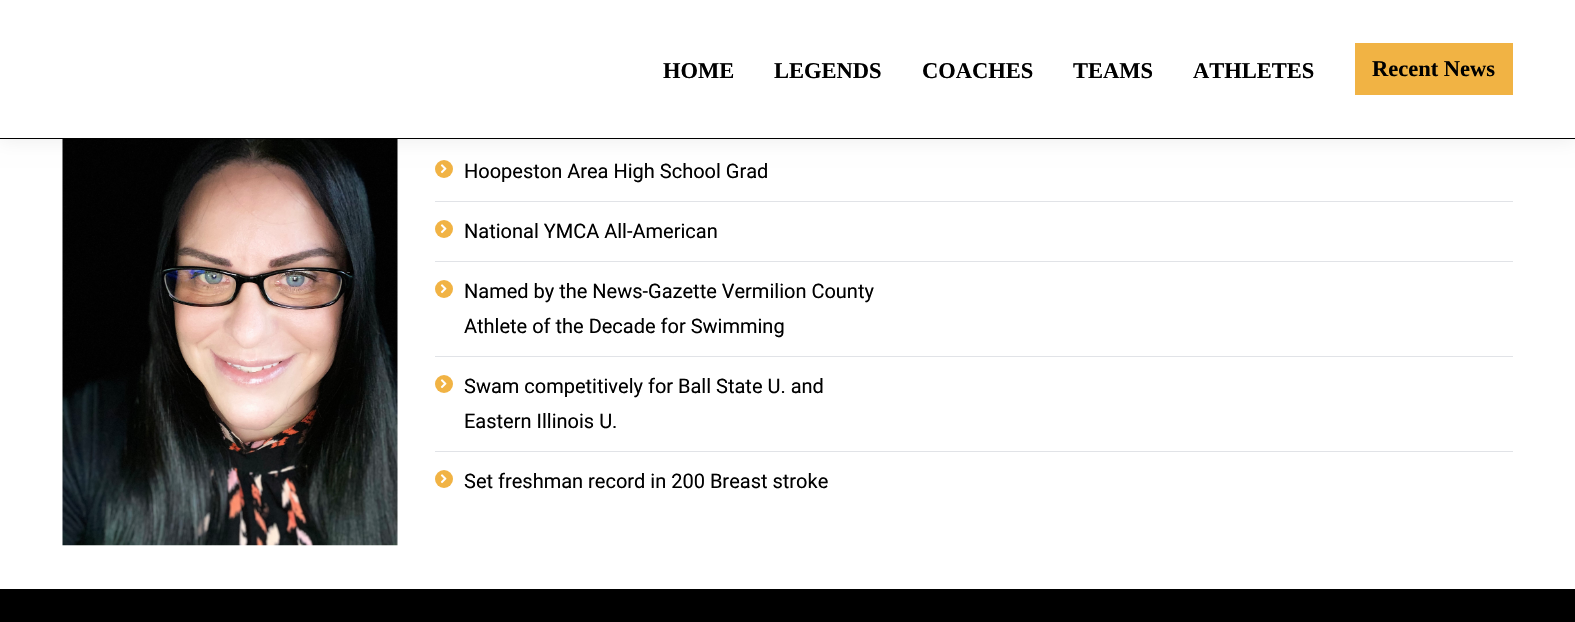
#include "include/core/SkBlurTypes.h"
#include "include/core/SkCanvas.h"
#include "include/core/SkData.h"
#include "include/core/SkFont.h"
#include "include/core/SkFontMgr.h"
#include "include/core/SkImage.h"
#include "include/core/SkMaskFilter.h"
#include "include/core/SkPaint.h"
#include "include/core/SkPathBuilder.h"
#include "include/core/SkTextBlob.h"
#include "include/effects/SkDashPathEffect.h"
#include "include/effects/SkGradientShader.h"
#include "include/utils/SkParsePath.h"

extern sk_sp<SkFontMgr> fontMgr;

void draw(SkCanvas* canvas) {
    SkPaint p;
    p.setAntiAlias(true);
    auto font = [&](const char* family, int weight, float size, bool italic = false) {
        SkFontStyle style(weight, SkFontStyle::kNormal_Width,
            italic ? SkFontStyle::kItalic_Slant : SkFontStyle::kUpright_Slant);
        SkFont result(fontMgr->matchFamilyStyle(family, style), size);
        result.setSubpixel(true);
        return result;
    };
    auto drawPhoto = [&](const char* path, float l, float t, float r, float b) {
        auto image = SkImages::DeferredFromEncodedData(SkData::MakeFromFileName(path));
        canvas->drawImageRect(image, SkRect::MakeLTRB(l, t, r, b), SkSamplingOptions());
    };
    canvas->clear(0xFFFFFFFF);
    drawPhoto("media/1.png", 62, 139, 398, 546);
    p.setColor(0xFFF1B344);
    canvas->drawCircle(444, 169, 9, p);
    drawPhoto("media/2.png", 440, 164, 447, 173);
    p.setColor(0x12000000);
    p.setMaskFilter(SkMaskFilter::MakeBlur(kNormal_SkBlurStyle, 9.5f));
    canvas->drawRect(SkRect::MakeLTRB(-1, -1, 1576, 140), p);
    p.setMaskFilter(nullptr);
    p.setColor(0xFFFFFFFF);
    canvas->drawRect(SkRect::MakeLTRB(0, 0, 1575, 138), p);
    p.setColor(0xFF000000);
    canvas->drawRect(SkRect::MakeLTRB(0, 138, 1575, 139), p);
    auto font1 = font("Liberation Serif", 700, 22.5f);
    {
        const struct { const char* s; float x, y; } items[] = {
            {"HOME", 663, 78},
            {"LEGENDS", 774, 78},
            {"COACHES", 922, 78},
            {"TEAMS", 1073, 78},
            {"ATHLETES", 1193, 78},
        };
        for (auto [s, x, y] : items) {
            canvas->drawString(s, x, y, font1, p);
        }
    }
    p.setColor(0xFFF1B344);
    canvas->drawRect(SkRect::MakeLTRB(1355, 43, 1513, 95), p);
    p.setColor(0xFF000000);
    canvas->drawString("Recent News", 1372, 76, font1, p);
    auto font2 = font("Roboto", 400, 20);
    canvas->drawString("Hoopeston Area High School Grad", 464, 178, font2, p);
    p.setColor(0xFFE1E3E7);
    canvas->drawRect(SkRect::MakeLTRB(435, 201, 1513, 202), p);
    p.setColor(0xFFF1B344);
    canvas->drawCircle(444, 229, 9, p);
    p.setColor(0xFF000000);
    canvas->drawString("National YMCA All-American", 464, 238, font2, p);
    drawPhoto("media/2.png", 440, 224, 447, 233);
    p.setColor(0xFFE1E3E7);
    canvas->drawRect(SkRect::MakeLTRB(435, 261, 1513, 262), p);
    p.setColor(0xFFF1B344);
    canvas->drawCircle(444, 289, 9, p);
    p.setColor(0xFF000000);
    canvas->drawString("Named by the News-Gazette Vermilion County", 464, 298, font2, p);
    drawPhoto("media/2.png", 440, 284, 447, 293);
    canvas->drawString("Athlete of the Decade for Swimming", 464, 333, font2, p);
    p.setColor(0xFFE1E3E7);
    canvas->drawRect(SkRect::MakeLTRB(435, 356, 1513, 357), p);
    p.setColor(0xFFF1B344);
    canvas->drawCircle(444, 384, 9, p);
    p.setColor(0xFF000000);
    canvas->drawString("Swam competitively for Ball State U. and", 464, 393, font2, p);
    drawPhoto("media/2.png", 440, 379, 447, 388);
    canvas->drawString("Eastern Illinois U.", 464, 428, font2, p);
    p.setColor(0xFFE1E3E7);
    canvas->drawRect(SkRect::MakeLTRB(435, 451, 1513, 452), p);
    p.setColor(0xFFF1B344);
    canvas->drawCircle(444, 479, 9, p);
    p.setColor(0xFF000000);
    canvas->drawString("Set freshman record in 200 Breast stroke", 464, 488, font2, p);
    drawPhoto("media/2.png", 440, 474, 447, 483);
    canvas->drawRect(SkRect::MakeLTRB(0, 589, 1575, 622), p);
}
